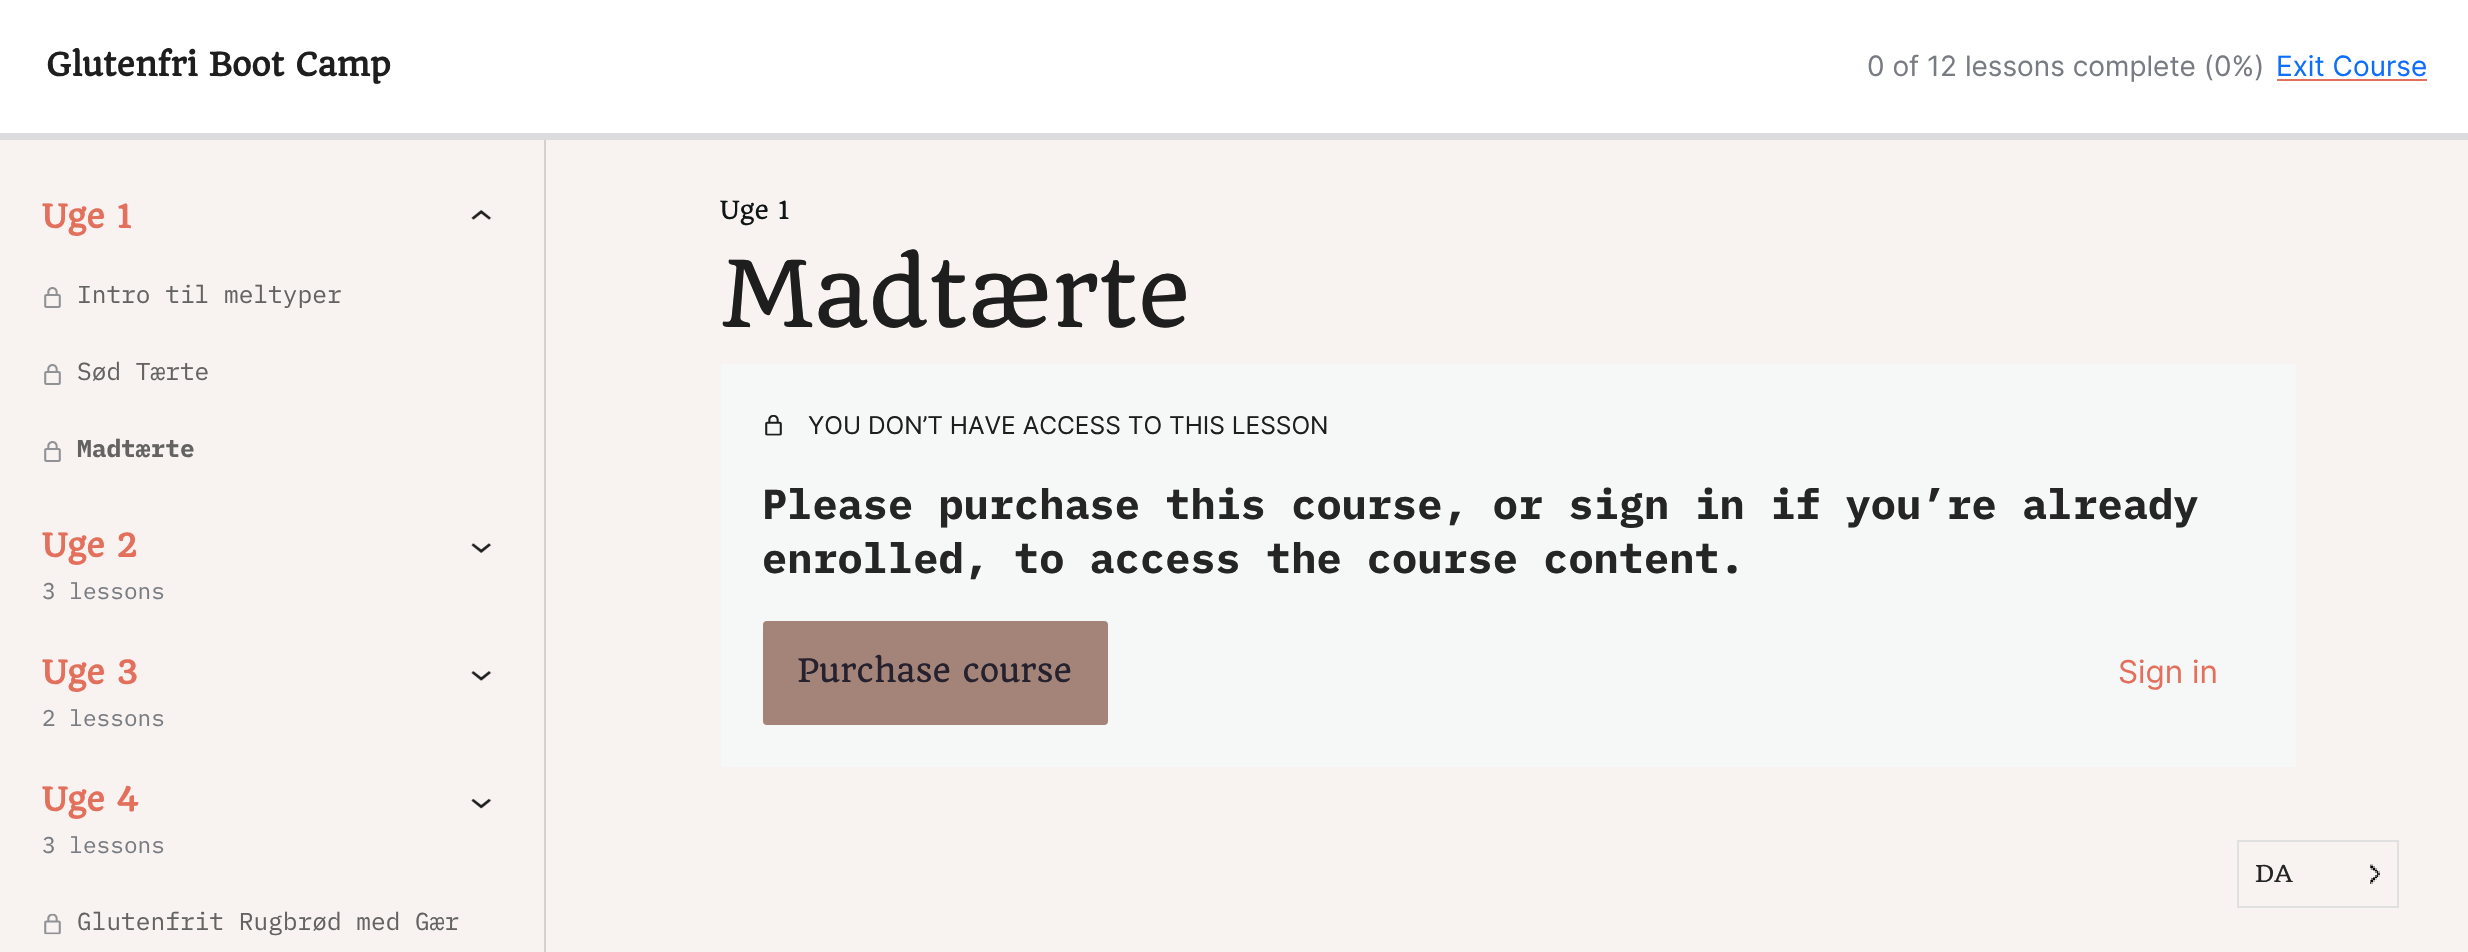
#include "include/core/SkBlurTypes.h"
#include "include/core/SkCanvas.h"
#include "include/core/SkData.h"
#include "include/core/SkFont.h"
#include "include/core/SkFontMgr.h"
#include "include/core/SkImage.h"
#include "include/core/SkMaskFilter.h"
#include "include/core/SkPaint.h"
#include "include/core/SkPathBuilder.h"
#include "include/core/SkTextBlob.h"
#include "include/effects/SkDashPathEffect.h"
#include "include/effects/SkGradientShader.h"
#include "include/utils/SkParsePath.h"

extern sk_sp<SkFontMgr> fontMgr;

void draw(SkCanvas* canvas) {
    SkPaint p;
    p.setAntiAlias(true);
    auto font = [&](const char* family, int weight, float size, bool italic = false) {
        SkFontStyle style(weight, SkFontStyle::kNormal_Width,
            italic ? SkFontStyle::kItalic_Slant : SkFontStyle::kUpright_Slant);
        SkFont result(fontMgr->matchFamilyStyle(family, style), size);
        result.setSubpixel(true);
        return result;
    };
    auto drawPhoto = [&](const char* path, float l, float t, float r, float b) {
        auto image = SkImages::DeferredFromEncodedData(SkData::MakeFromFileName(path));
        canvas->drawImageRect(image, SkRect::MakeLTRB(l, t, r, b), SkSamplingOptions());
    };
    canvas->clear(0xFFF8F3F0);
    p.setColor(0xFFFFFFFF);
    canvas->drawRect(SkRect::MakeLTRB(0, 0, 2468, 133), p);
    auto font1 = font("Quando", 700, 31.25f);
    p.setColor(0xFF1E1E1E);
    canvas->drawString("Glutenfri Boot Camp", 46, 76, font1, p);
    auto font2 = font("Inter", 400, 28);
    p.setColor(0xFF787C82);
    canvas->drawString("0 of 12 lessons complete (0%)", 1867, 76, font2, p);
    p.setColor(0xFF0D6EFD);
    canvas->drawString("Exit Course", 2276, 76, font2, p);
    {
        const struct { float l, t, r, b; SkColor color; } items[] = {
            {2277, 79, 2427, 81, 0xFFE3705C},
            {0, 133, 2468, 140, 0xFFDCDCDE},
            {544, 140, 546, 952, 0xFFD3D0CE},
        };
        for (auto [l, t, r, b, color] : items) {
            p.setColor(color);
            canvas->drawRect(SkRect::MakeLTRB(l, t, r, b), p);
        }
    }
    auto font3 = font("Quando", 700, 31.5f);
    p.setColor(0xFFE3705C);
    canvas->drawString("Uge 1", 42, 228, font3, p);
    drawPhoto("media/1.png", 471, 210, 492, 220);
    drawPhoto("media/2.png", 44, 287, 61, 308);
    auto font4 = font("IBM Plex Mono", 400, 24.5f);
    p.setColor(0xFF646362);
    canvas->drawString("Intro til meltyper", 77, 303, font4, p);
    drawPhoto("media/2.png", 44, 364, 61, 385);
    canvas->drawString("Sød Tærte", 77, 380, font4, p);
    drawPhoto("media/2.png", 44, 441, 61, 462);
    auto font5 = font("IBM Plex Mono", 700, 24.5f);
    canvas->drawString("Madtærte", 77, 457, font5, p);
    p.setColor(0xFFE3705C);
    canvas->drawString("Uge 2", 42, 557, font3, p);
    drawPhoto("media/3.png", 471, 543, 492, 553);
    auto font6 = font("IBM Plex Mono", 400, 22.75f);
    p.setColor(0xFF787C82);
    canvas->drawString("3 lessons", 42, 599, font6, p);
    p.setColor(0xFFE3705C);
    canvas->drawString("Uge 3", 42, 684, font3, p);
    drawPhoto("media/4.png", 471, 671, 492, 681);
    p.setColor(0xFF787C82);
    canvas->drawString("2 lessons", 42, 726, font6, p);
    p.setColor(0xFFE3705C);
    canvas->drawString("Uge 4", 42, 811, font3, p);
    drawPhoto("media/5.png", 471, 798, 492, 809);
    p.setColor(0xFF787C82);
    canvas->drawString("3 lessons", 42, 853, font6, p);
    drawPhoto("media/6.png", 44, 913, 61, 935);
    p.setColor(0xFF646362);
    canvas->drawString("Glutenfrit Rugbrød med Gær", 77, 930, font4, p);
    auto font7 = font("Quando", 400, 24.5f);
    p.setColor(0xFF101517);
    canvas->drawString("Uge 1", 720, 219, font7, p);
    auto font8 = font("Quando", 400, 90);
    p.setColor(0xFF1E1E1E);
    canvas->drawString("Madtærte", 720, 327, font8, p);
    p.setColor(0xFFF6F7F7);
    canvas->drawRect(SkRect::MakeLTRB(721, 364, 2296, 767), p);
    drawPhoto("media/7.png", 765, 415, 782, 436);
    auto font9 = font("Inter", 400, 24.5f);
    p.setColor(0xFF1E1E1E);
    canvas->drawString("YOU DON’T HAVE ACCESS TO THIS LESSON", 808, 434, font9, p);
    auto font10 = font("IBM Plex Mono", 700, 42);
    p.setColor(0xFF252525);
    canvas->drawString("Please purchase this course, or sign in if you’re already", 762, 519, font10, p);
    canvas->drawString("enrolled, to access the course content.", 762, 573, font10, p);
    p.setColor(0xFFA48478);
    canvas->drawRoundRect(SkRect::MakeLTRB(763, 621, 1108, 725), 4, 4, p);
    auto font11 = font("Quando", 400, 31.5f);
    p.setColor(0xFF26212E);
    canvas->drawString("Purchase course", 797, 682, font11, p);
    auto font12 = font("Inter", 400, 31.5f);
    p.setColor(0xFFE3705C);
    canvas->drawString("Sign in", 2118, 683, font12, p);
    p.setStyle(SkPaint::kStroke_Style);
    p.setStrokeWidth(2);
    p.setColor(0xFFE0E0E0);
    canvas->drawRect(SkRect::MakeLTRB(2238, 841, 2398, 907), p);
    auto font13 = font("Quando", 400, 22.75f);
    p.setStyle(SkPaint::kFill_Style);
    p.setColor(0xFF252525);
    canvas->drawString("DA", 2255, 882, font13, p);
    drawPhoto("media/8.png", 2370, 864, 2380, 884);
}
